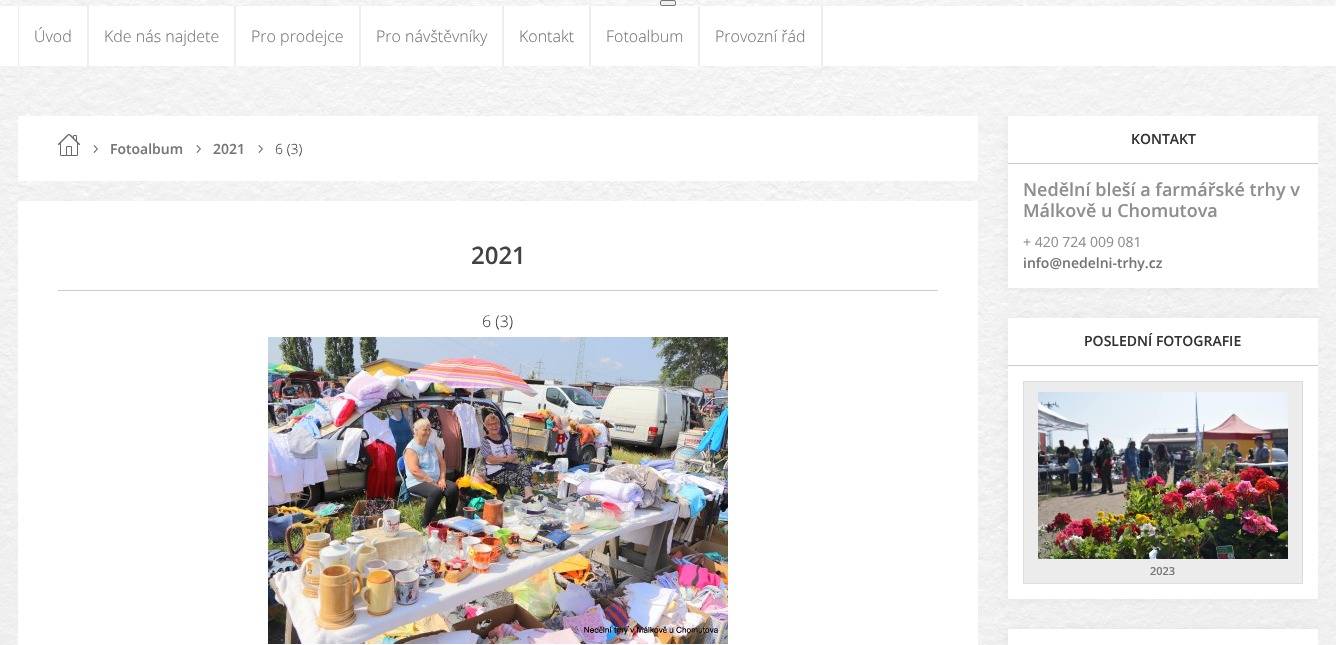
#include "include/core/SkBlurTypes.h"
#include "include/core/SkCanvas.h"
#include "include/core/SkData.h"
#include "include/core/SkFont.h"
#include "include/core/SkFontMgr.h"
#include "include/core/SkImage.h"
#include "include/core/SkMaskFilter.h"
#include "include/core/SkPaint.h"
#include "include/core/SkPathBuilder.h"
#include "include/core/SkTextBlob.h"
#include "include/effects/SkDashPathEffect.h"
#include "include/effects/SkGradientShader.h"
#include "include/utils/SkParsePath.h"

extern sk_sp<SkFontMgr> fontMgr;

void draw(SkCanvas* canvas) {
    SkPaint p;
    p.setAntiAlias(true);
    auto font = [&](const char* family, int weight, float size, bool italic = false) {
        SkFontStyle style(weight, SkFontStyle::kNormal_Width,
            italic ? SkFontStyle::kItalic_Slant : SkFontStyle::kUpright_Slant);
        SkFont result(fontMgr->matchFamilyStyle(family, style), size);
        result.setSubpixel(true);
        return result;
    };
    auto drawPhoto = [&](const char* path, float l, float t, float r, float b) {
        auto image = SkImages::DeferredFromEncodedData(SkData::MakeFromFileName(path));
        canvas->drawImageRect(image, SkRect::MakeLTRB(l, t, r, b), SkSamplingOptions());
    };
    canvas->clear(0xFFFFFFFF);
    drawPhoto("media/1.png", 0, 0, 1336, 645);
    p.setColor(0xFFEFEFEF);
    canvas->drawRoundRect(SkRect::MakeLTRB(660.5f, 0.5f, 675.5f, 5.5f), 1.5f, 1.5f, p);
    p.setStyle(SkPaint::kStroke_Style);
    p.setStrokeWidth(1);
    p.setColor(0xFF767676);
    canvas->drawRoundRect(SkRect::MakeLTRB(660.5f, 0.5f, 675.5f, 5.5f), 1.5f, 1.5f, p);
    p.setStyle(SkPaint::kFill_Style);
    {
        const struct { float l, t, r, b; SkColor color; } items[] = {
            {0, 6, 1336, 66, 0xFFFFFFFF},
            {87, 6, 89, 66, 0xFFEEEEEE},
            {18, 6, 19, 66, 0xFFEEEEEE},
        };
        for (auto [l, t, r, b, color] : items) {
            p.setColor(color);
            canvas->drawRect(SkRect::MakeLTRB(l, t, r, b), p);
        }
    }
    auto font1 = font("Open Sans", 300, 16);
    p.setColor(0xFF757575);
    canvas->drawString("Úvod", 34, 42, font1, p);
    p.setColor(0xFFEEEEEE);
    canvas->drawRect(SkRect::MakeLTRB(234, 6, 236, 66), p);
    p.setColor(0xFF757575);
    canvas->drawString("Kde nás najdete", 104, 42, font1, p);
    p.setColor(0xFFEEEEEE);
    canvas->drawRect(SkRect::MakeLTRB(359, 6, 361, 66), p);
    p.setColor(0xFF757575);
    canvas->drawString("Pro prodejce", 251, 42, font1, p);
    p.setColor(0xFFEEEEEE);
    canvas->drawRect(SkRect::MakeLTRB(502, 6, 504, 66), p);
    p.setColor(0xFF757575);
    canvas->drawString("Pro návštěvníky", 376, 42, font1, p);
    p.setColor(0xFFEEEEEE);
    canvas->drawRect(SkRect::MakeLTRB(589, 6, 591, 66), p);
    p.setColor(0xFF757575);
    canvas->drawString("Kontakt", 519, 42, font1, p);
    p.setColor(0xFFEEEEEE);
    canvas->drawRect(SkRect::MakeLTRB(698, 6, 700, 66), p);
    p.setColor(0xFF757575);
    canvas->drawString("Fotoalbum", 606, 42, font1, p);
    p.setColor(0xFFEEEEEE);
    canvas->drawRect(SkRect::MakeLTRB(821, 6, 823, 66), p);
    p.setColor(0xFF757575);
    canvas->drawString("Provozní řád", 715, 42, font1, p);
    p.setColor(0xFFFFFFFF);
    canvas->drawRect(SkRect::MakeLTRB(18, 116, 978, 181), p);
    drawPhoto("media/2.png", 58, 134, 80, 156);
    drawPhoto("media/3.png", 93, 145, 98, 153);
    auto font2 = font("Open Sans", 600, 14);
    p.setColor(0xFF757575);
    canvas->drawString("Fotoalbum", 110, 154, font2, p);
    drawPhoto("media/3.png", 196, 145, 201, 153);
    canvas->drawString("2021", 213, 154, font2, p);
    drawPhoto("media/3.png", 258, 145, 263, 153);
    auto font3 = font("Open Sans", 300, 14);
    p.setColor(0xFF424242);
    canvas->drawString("6 (3)", 275, 154, font3, p);
    p.setColor(0xFFFFFFFF);
    canvas->drawRect(SkRect::MakeLTRB(18, 201, 978, 645), p);
    p.setColor(0xFFCBCBCB);
    canvas->drawRect(SkRect::MakeLTRB(58, 290, 938, 291), p);
    auto font4 = font("Open Sans", 600, 24);
    p.setColor(0xFF424242);
    canvas->drawString("2021", 471, 264, font4, p);
    canvas->drawString("6 (3)", 482, 327, font1, p);
    drawPhoto("media/4.png", 268, 337, 728, 644);
    canvas->save();
    canvas->clipRect(SkRect::MakeLTRB(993, 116, 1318, 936));
    p.setColor(0x0D000000);
    p.setMaskFilter(SkMaskFilter::MakeBlur(kNormal_SkBlurStyle, 5));
    canvas->drawRect(SkRect::MakeLTRB(1008, 116, 1318, 288), p);
    p.setMaskFilter(nullptr);
    canvas->restore();
    p.setColor(0xFFFFFFFF);
    canvas->drawRect(SkRect::MakeLTRB(1008, 116, 1318, 288), p);
    p.setColor(0xFFCBCBCB);
    canvas->drawRect(SkRect::MakeLTRB(1008, 163, 1318, 164), p);
    p.setColor(0xFF333333);
    canvas->drawString("KONTAKT", 1131, 144, font2, p);
    auto font5 = font("Open Sans", 600, 18);
    p.setColor(0xFF8E8E8E);
    canvas->drawString("Nedělní bleší a farmářské trhy v", 1023, 196, font5, p);
    canvas->drawString("Málkově u Chomutova", 1023, 217, font5, p);
    auto font6 = font("Open Sans", 400, 14);
    canvas->drawString("+ 420 724 009 081", 1023, 247, font6, p);
    p.setColor(0xFF757575);
    canvas->drawString("info@nedelni-trhy.cz", 1023, 268, font2, p);
    canvas->save();
    canvas->clipRect(SkRect::MakeLTRB(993, 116, 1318, 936));
    p.setColor(0x0D000000);
    p.setMaskFilter(SkMaskFilter::MakeBlur(kNormal_SkBlurStyle, 5));
    canvas->drawRect(SkRect::MakeLTRB(1008, 318, 1318, 599), p);
    p.setMaskFilter(nullptr);
    canvas->restore();
    p.setColor(0xFFFFFFFF);
    canvas->drawRect(SkRect::MakeLTRB(1008, 318, 1318, 599), p);
    p.setColor(0xFFCBCBCB);
    canvas->drawRect(SkRect::MakeLTRB(1008, 365, 1318, 366), p);
    p.setColor(0xFF333333);
    canvas->drawString("POSLEDNÍ FOTOGRAFIE", 1084, 346, font2, p);
    p.setColor(0xFFECECEC);
    canvas->drawRect(SkRect::MakeLTRB(1023.5f, 381.5f, 1302.5f, 583.5f), p);
    p.setStyle(SkPaint::kStroke_Style);
    p.setColor(0xFFDDDDDD);
    canvas->drawRect(SkRect::MakeLTRB(1023.5f, 381.5f, 1302.5f, 583.5f), p);
    drawPhoto("media/5.png", 1038, 392, 1288, 559);
    auto font7 = font("Open Sans", 600, 11);
    p.setStyle(SkPaint::kFill_Style);
    p.setColor(0xFF757575);
    canvas->drawString("2023", 1150, 575, font7, p);
    canvas->save();
    canvas->clipRect(SkRect::MakeLTRB(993, 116, 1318, 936));
    p.setColor(0x0D000000);
    p.setMaskFilter(SkMaskFilter::MakeBlur(kNormal_SkBlurStyle, 5));
    canvas->drawRect(SkRect::MakeLTRB(1008, 629, 1318, 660), p);
    p.setMaskFilter(nullptr);
    canvas->restore();
    p.setColor(0xFFFFFFFF);
    canvas->drawRect(SkRect::MakeLTRB(1008, 629, 1318, 645), p);
}
